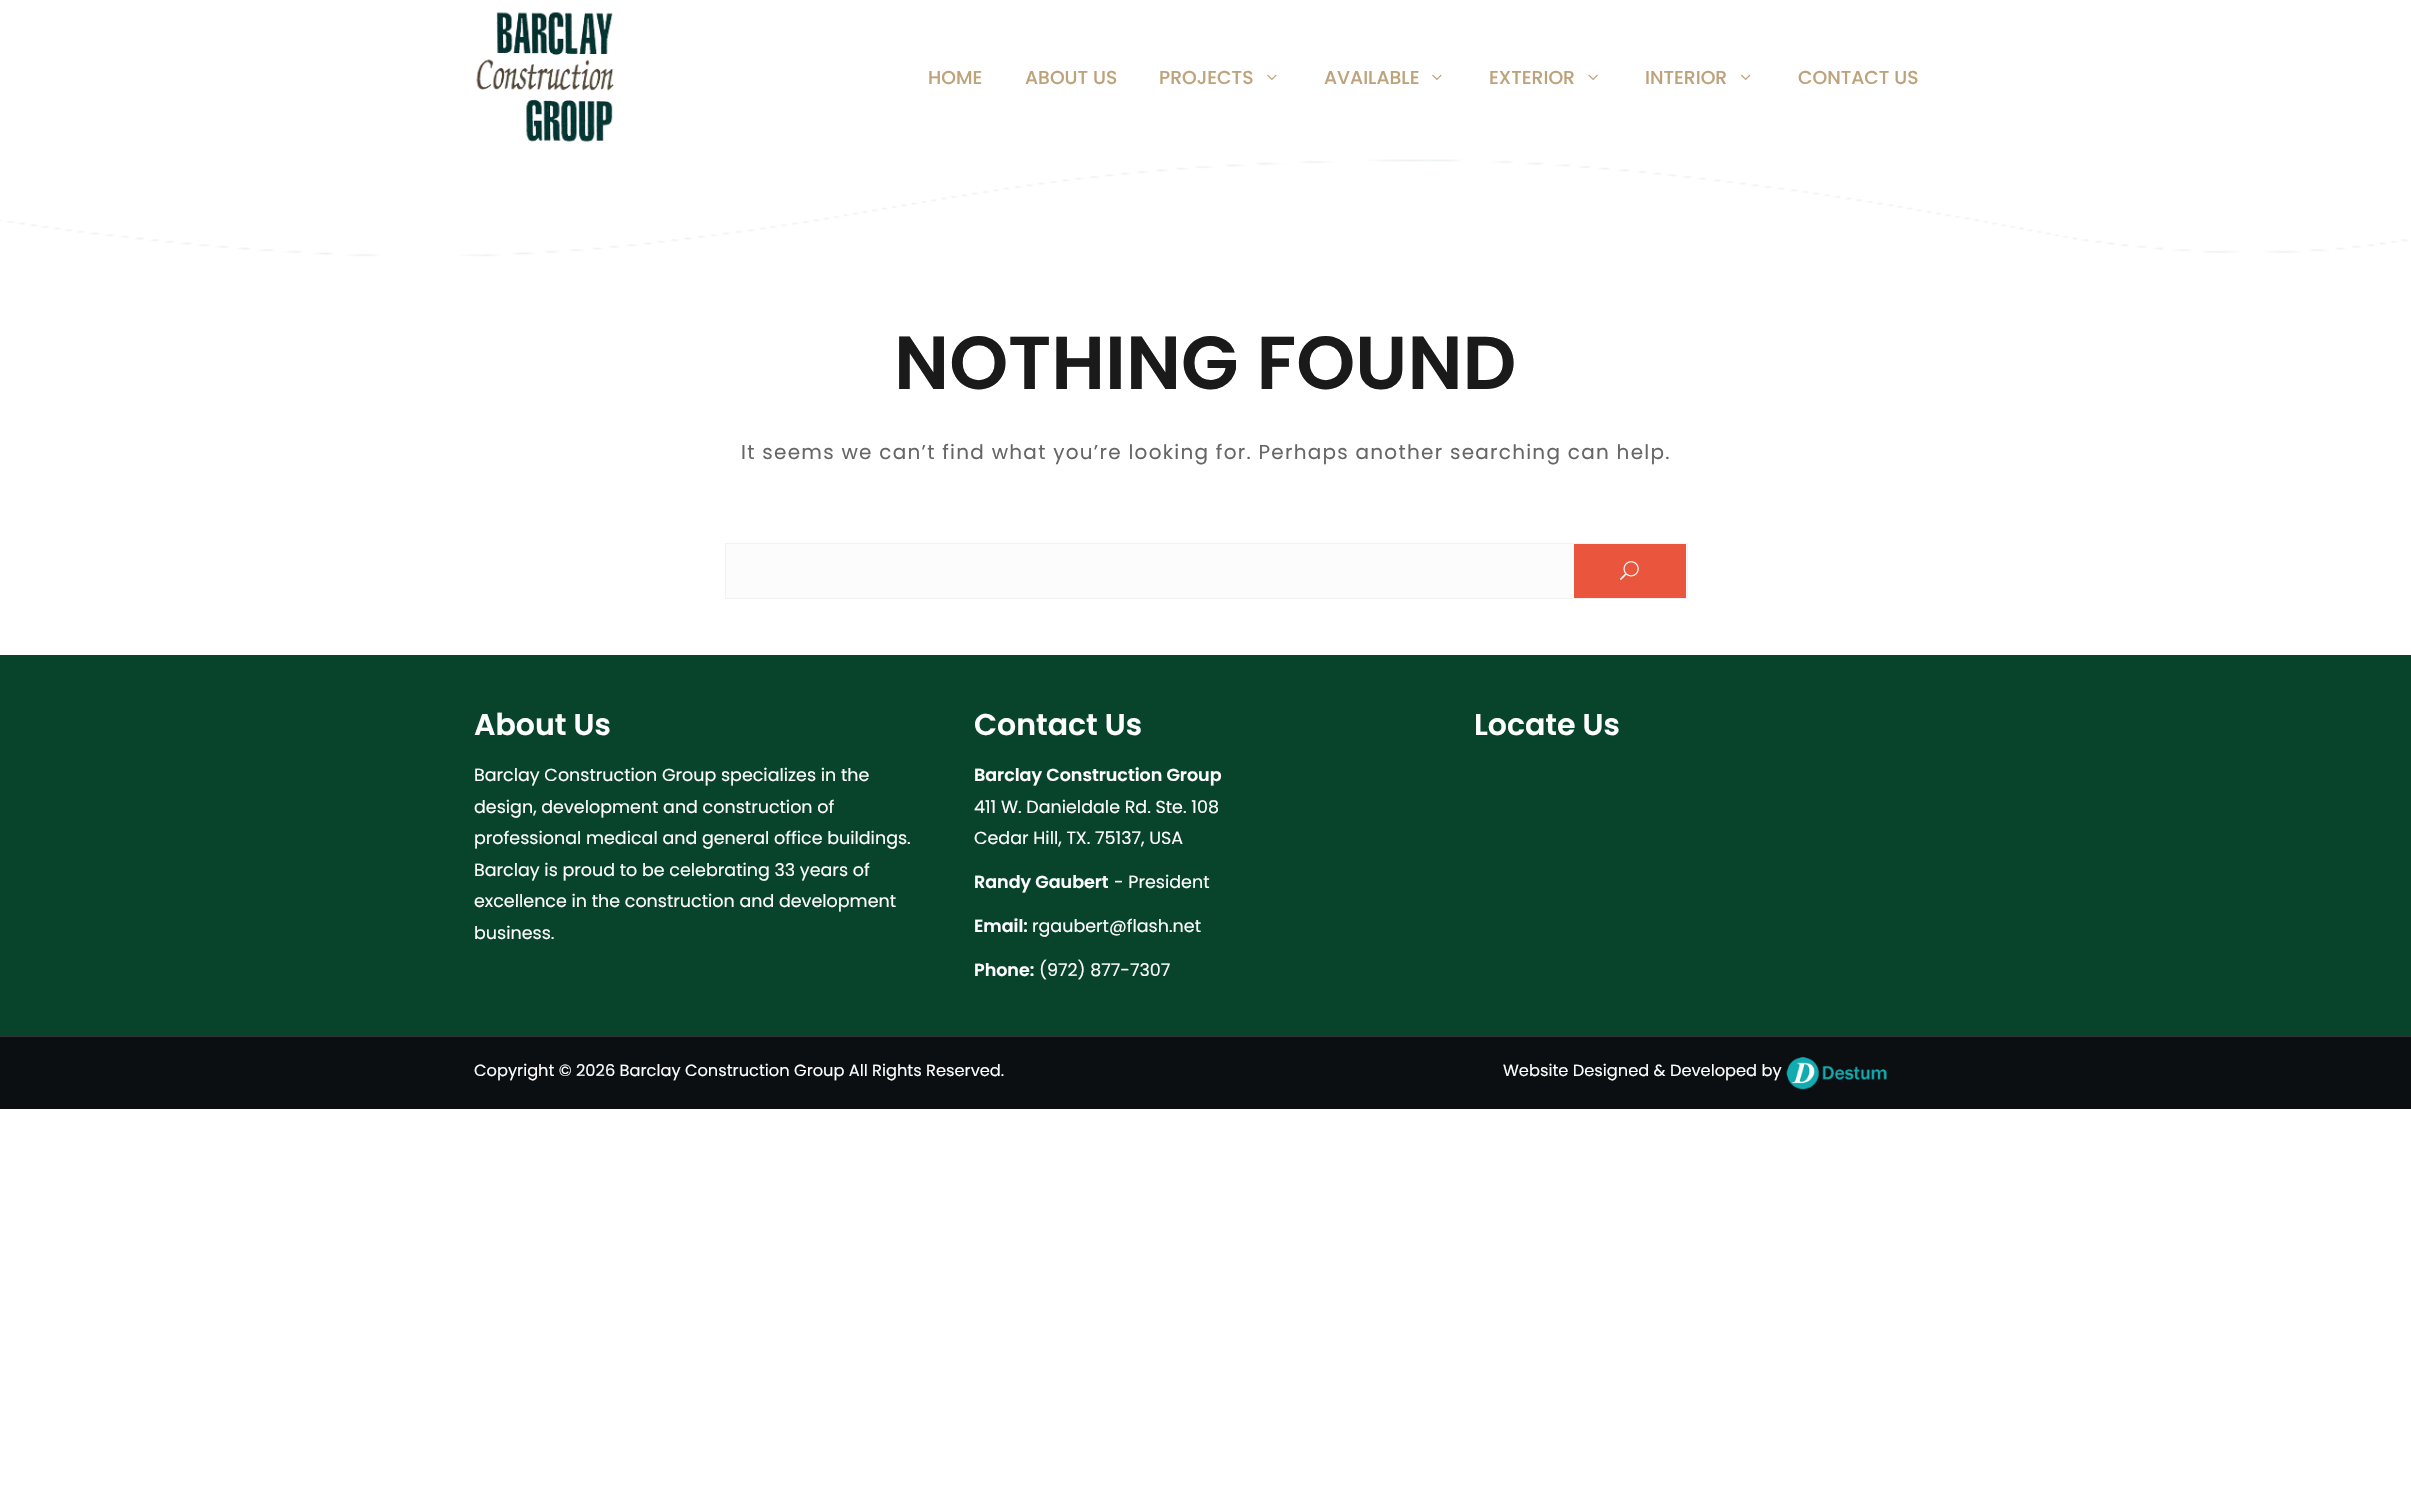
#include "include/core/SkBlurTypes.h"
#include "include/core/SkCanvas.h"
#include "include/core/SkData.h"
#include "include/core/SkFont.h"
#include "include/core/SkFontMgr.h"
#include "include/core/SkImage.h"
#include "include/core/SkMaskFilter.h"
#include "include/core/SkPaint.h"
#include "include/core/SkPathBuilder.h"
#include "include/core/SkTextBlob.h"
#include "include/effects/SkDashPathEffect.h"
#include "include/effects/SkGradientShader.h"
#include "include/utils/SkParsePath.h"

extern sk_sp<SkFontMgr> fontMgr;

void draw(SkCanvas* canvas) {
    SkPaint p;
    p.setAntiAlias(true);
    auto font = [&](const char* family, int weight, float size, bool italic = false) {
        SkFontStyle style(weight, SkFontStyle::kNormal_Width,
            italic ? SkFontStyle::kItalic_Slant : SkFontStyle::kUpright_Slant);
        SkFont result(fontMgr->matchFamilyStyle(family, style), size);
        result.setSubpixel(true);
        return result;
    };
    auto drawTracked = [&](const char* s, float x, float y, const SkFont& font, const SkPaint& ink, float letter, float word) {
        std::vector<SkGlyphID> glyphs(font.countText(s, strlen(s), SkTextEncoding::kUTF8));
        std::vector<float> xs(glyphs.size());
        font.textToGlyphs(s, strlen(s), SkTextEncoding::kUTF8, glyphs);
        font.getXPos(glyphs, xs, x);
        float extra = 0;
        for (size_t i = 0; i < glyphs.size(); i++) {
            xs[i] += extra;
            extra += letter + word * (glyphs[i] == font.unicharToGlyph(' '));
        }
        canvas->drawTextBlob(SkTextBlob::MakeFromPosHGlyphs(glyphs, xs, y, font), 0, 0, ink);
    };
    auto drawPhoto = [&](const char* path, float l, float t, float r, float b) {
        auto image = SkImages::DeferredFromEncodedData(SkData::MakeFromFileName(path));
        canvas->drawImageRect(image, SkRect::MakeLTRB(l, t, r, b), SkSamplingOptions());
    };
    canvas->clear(0xFFFFFFFF);
    drawPhoto("media/1.png", 476, 12, 614, 142);
    auto font1 = font("Poppins", 500, 18.75f);
    p.setColor(0xFFBEA27A);
    {
        const struct { const char* s; float x, y; } items[] = {
            {"HOME", 928, 84},
            {"ABOUT US", 1025, 84},
            {"PROJECTS", 1159, 84},
        };
        for (auto [s, x, y] : items) {
            canvas->drawString(s, x, y, font1, p);
        }
    }
    drawPhoto("media/2.png", 1267, 74, 1277, 80);
    canvas->drawString("AVAILABLE", 1324, 84, font1, p);
    drawPhoto("media/2.png", 1432, 74, 1442, 80);
    canvas->drawString("EXTERIOR", 1489, 84, font1, p);
    drawPhoto("media/3.png", 1588, 74, 1598, 80);
    canvas->drawString("INTERIOR", 1645, 84, font1, p);
    drawPhoto("media/4.png", 1741, 74, 1751, 80);
    canvas->drawString("CONTACT US", 1798, 84, font1, p);
    drawPhoto("media/5.png", 0, 159, 2409, 257);
    auto font2 = font("Poppins", 600, 75);
    p.setColor(0xFF1A1A1A);
    canvas->drawString("NOTHING FOUND", 894, 389, font2, p);
    auto font3 = font("Poppins", 400, 20);
    p.setColor(0xFF666666);
    drawTracked("It seems we can’t find what you’re looking for. Perhaps another searching can help.", 741, 459, font3, p, 1.25f, 0);
    p.setColor(0xFFFCFCFC);
    canvas->drawRect(SkRect::MakeLTRB(725.5f, 543.5f, 1687.5f, 598.5f), p);
    p.setStyle(SkPaint::kStroke_Style);
    p.setStrokeWidth(1);
    p.setColor(0xFFF2F2F2);
    canvas->drawRect(SkRect::MakeLTRB(725.5f, 543.5f, 1687.5f, 598.5f), p);
    p.setStyle(SkPaint::kFill_Style);
    p.setColor(0xFFE9563D);
    canvas->drawRect(SkRect::MakeLTRB(1574, 544, 1686, 598), p);
    drawPhoto("media/6.png", 1620, 561, 1639, 580);
    p.setColor(0xFF08432C);
    canvas->drawRect(SkRect::MakeLTRB(0, 655, 2411, 1036), p);
    auto font4 = font("Poppins", 600, 30);
    p.setColor(0xFFFFFFFF);
    canvas->drawString("About Us", 474, 735, font4, p);
    auto font5 = font("Poppins", 400, 17.5f);
    {
        const struct { const char* s; float x, y; } items[] = {
            {"Barclay Construction Group specializes in the", 474, 781},
            {"design, development and construction of", 474, 813},
            {"professional medical and general office buildings.", 474, 844},
            {"Barclay is proud to be celebrating 33 years of", 474, 876},
            {"excellence in the construction and development", 474, 907},
            {"business.", 474, 939},
        };
        for (auto [s, x, y] : items) {
            canvas->drawString(s, x, y, font5, p);
        }
    }
    canvas->drawString("Contact Us", 974, 735, font4, p);
    auto font6 = font("Poppins", 600, 17.5f);
    canvas->drawString("Barclay Construction Group", 974, 781, font6, p);
    canvas->drawString("411 W. Danieldale Rd. Ste. 108", 974, 813, font5, p);
    canvas->drawString("Cedar Hill, TX. 75137, USA", 974, 844, font5, p);
    canvas->drawString("Randy Gaubert", 974, 888, font6, p);
    canvas->drawString("- President", 1114, 888, font5, p);
    canvas->drawString("Email:", 974, 932, font6, p);
    canvas->drawString("rgaubert@flash.net", 1032, 932, font5, p);
    canvas->drawString("Phone:", 974, 976, font6, p);
    canvas->drawString("(972) 877-7307", 1039, 976, font5, p);
    canvas->drawString("Locate Us", 1474, 735, font4, p);
    p.setColor(0xFF0B0F12);
    canvas->drawRect(SkRect::MakeLTRB(0, 1037, 2411, 1109), p);
    p.setColor(0xFF303336);
    canvas->drawRect(SkRect::MakeLTRB(0, 1036, 2411, 1037), p);
    auto font7 = font("Poppins", 400, 16.25f);
    p.setColor(0xFFFFFFFF);
    canvas->drawString("Copyright © 2026 Barclay Construction Group All Rights Reserved.", 474, 1076, font7, p);
    canvas->drawString("Website Designed & Developed by", 1503, 1076, font7, p);
    drawPhoto("media/7.png", 1786, 1057, 1887, 1090);
}
